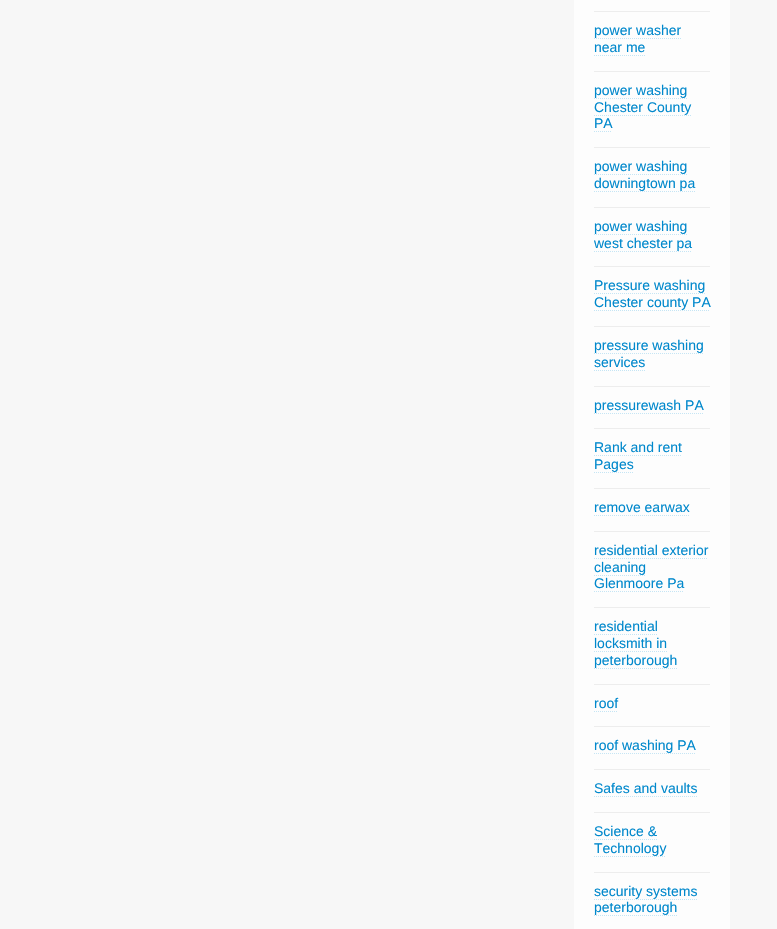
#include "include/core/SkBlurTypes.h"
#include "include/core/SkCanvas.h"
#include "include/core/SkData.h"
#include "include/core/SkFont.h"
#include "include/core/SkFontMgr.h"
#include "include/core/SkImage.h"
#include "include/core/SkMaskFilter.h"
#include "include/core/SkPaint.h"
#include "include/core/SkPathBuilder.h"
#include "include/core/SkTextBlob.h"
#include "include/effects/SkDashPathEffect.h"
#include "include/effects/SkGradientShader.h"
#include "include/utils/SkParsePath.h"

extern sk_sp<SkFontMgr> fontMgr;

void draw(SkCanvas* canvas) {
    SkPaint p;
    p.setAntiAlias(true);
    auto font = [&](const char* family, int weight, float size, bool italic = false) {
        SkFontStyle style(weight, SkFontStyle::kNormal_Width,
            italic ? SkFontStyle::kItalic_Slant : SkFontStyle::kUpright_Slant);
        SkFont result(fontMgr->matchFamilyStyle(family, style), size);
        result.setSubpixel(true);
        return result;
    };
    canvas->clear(0xFFF7F7F7);
    {
        const struct { float l, t, r, b; SkColor color; } items[] = {
            {574, 0, 730, 929, 0xFFFDFDFD},
            {594, 11, 710, 12, 0xFFEDEDED},
            {594, 71, 710, 72, 0xFFEDEDED},
        };
        for (auto [l, t, r, b, color] : items) {
            p.setColor(color);
            canvas->drawRect(SkRect::MakeLTRB(l, t, r, b), p);
        }
    }
    auto font1 = font("Liberation Sans", 400, 14);
    p.setColor(0xFF0088CC);
    canvas->drawString("power washer", 594, 35, font1, p);
    p.setStyle(SkPaint::kStroke_Style);
    p.setStrokeWidth(1);
    p.setColor(0xFFC5E5F4);
    p.setPathEffect(SkDashPathEffect::Make({{1, 1}}, 0));
    canvas->drawPath(SkPathBuilder().moveTo(594, 38.5f).lineTo(681, 38.5f).detach(), p);
    p.setPathEffect(nullptr);
    p.setStyle(SkPaint::kFill_Style);
    p.setColor(0xFF0088CC);
    canvas->drawString("near me", 594, 52, font1, p);
    p.setStyle(SkPaint::kStroke_Style);
    p.setColor(0xFFC5E5F4);
    p.setPathEffect(SkDashPathEffect::Make({{1, 1}}, 0));
    canvas->drawPath(SkPathBuilder().moveTo(594, 55.5f).lineTo(645, 55.5f).detach(), p);
    p.setPathEffect(nullptr);
    p.setStyle(SkPaint::kFill_Style);
    p.setColor(0xFFEDEDED);
    canvas->drawRect(SkRect::MakeLTRB(594, 147, 710, 148), p);
    p.setColor(0xFF0088CC);
    canvas->drawString("power washing", 594, 95, font1, p);
    p.setStyle(SkPaint::kStroke_Style);
    p.setColor(0xFFC5E5F4);
    p.setPathEffect(SkDashPathEffect::Make({{1, 1}}, 0));
    canvas->drawPath(SkPathBuilder().moveTo(594, 98.5f).lineTo(687, 98.5f).detach(), p);
    p.setPathEffect(nullptr);
    p.setStyle(SkPaint::kFill_Style);
    p.setColor(0xFF0088CC);
    canvas->drawString("Chester County", 594, 112, font1, p);
    p.setStyle(SkPaint::kStroke_Style);
    p.setColor(0xFFC5E5F4);
    p.setPathEffect(SkDashPathEffect::Make({{1, 1}}, 0));
    canvas->drawPath(SkPathBuilder().moveTo(594, 115.5f).lineTo(691, 115.5f).detach(), p);
    p.setPathEffect(nullptr);
    p.setStyle(SkPaint::kFill_Style);
    p.setColor(0xFF0088CC);
    canvas->drawString("PA", 594, 128, font1, p);
    p.setStyle(SkPaint::kStroke_Style);
    p.setColor(0xFFC5E5F4);
    p.setPathEffect(SkDashPathEffect::Make({{1, 1}}, 0));
    canvas->drawPath(SkPathBuilder().moveTo(594, 131.5f).lineTo(612, 131.5f).detach(), p);
    p.setPathEffect(nullptr);
    p.setStyle(SkPaint::kFill_Style);
    p.setColor(0xFFEDEDED);
    canvas->drawRect(SkRect::MakeLTRB(594, 207, 710, 208), p);
    p.setColor(0xFF0088CC);
    canvas->drawString("power washing", 594, 171, font1, p);
    p.setStyle(SkPaint::kStroke_Style);
    p.setColor(0xFFC5E5F4);
    p.setPathEffect(SkDashPathEffect::Make({{1, 1}}, 0));
    canvas->drawPath(SkPathBuilder().moveTo(594, 174.5f).lineTo(687, 174.5f).detach(), p);
    p.setPathEffect(nullptr);
    p.setStyle(SkPaint::kFill_Style);
    p.setColor(0xFF0088CC);
    canvas->drawString("downingtown pa", 594, 188, font1, p);
    p.setStyle(SkPaint::kStroke_Style);
    p.setColor(0xFFC5E5F4);
    p.setPathEffect(SkDashPathEffect::Make({{1, 1}}, 0));
    canvas->drawPath(SkPathBuilder().moveTo(594, 191.5f).lineTo(695, 191.5f).detach(), p);
    p.setPathEffect(nullptr);
    p.setStyle(SkPaint::kFill_Style);
    p.setColor(0xFFEDEDED);
    canvas->drawRect(SkRect::MakeLTRB(594, 266, 710, 267), p);
    p.setColor(0xFF0088CC);
    canvas->drawString("power washing", 594, 231, font1, p);
    p.setStyle(SkPaint::kStroke_Style);
    p.setColor(0xFFC5E5F4);
    p.setPathEffect(SkDashPathEffect::Make({{1, 1}}, 0));
    canvas->drawPath(SkPathBuilder().moveTo(594, 234.5f).lineTo(687, 234.5f).detach(), p);
    p.setPathEffect(nullptr);
    p.setStyle(SkPaint::kFill_Style);
    p.setColor(0xFF0088CC);
    canvas->drawString("west chester pa", 594, 248, font1, p);
    p.setStyle(SkPaint::kStroke_Style);
    p.setColor(0xFFC5E5F4);
    p.setPathEffect(SkDashPathEffect::Make({{1, 1}}, 0));
    canvas->drawPath(SkPathBuilder().moveTo(594, 251.5f).lineTo(692, 251.5f).detach(), p);
    p.setPathEffect(nullptr);
    p.setStyle(SkPaint::kFill_Style);
    p.setColor(0xFFEDEDED);
    canvas->drawRect(SkRect::MakeLTRB(594, 326, 710, 327), p);
    p.setColor(0xFF0088CC);
    canvas->drawString("Pressure washing", 594, 290, font1, p);
    p.setStyle(SkPaint::kStroke_Style);
    p.setColor(0xFFC5E5F4);
    p.setPathEffect(SkDashPathEffect::Make({{1, 1}}, 0));
    canvas->drawPath(SkPathBuilder().moveTo(594, 293.5f).lineTo(705, 293.5f).detach(), p);
    p.setPathEffect(nullptr);
    p.setStyle(SkPaint::kFill_Style);
    p.setColor(0xFF0088CC);
    canvas->drawString("Chester county PA", 594, 307, font1, p);
    p.setStyle(SkPaint::kStroke_Style);
    p.setColor(0xFFC5E5F4);
    p.setPathEffect(SkDashPathEffect::Make({{1, 1}}, 0));
    canvas->drawPath(SkPathBuilder().moveTo(594, 310.5f).lineTo(710, 310.5f).detach(), p);
    p.setPathEffect(nullptr);
    p.setStyle(SkPaint::kFill_Style);
    p.setColor(0xFFEDEDED);
    canvas->drawRect(SkRect::MakeLTRB(594, 386, 710, 387), p);
    p.setColor(0xFF0088CC);
    canvas->drawString("pressure washing", 594, 350, font1, p);
    p.setStyle(SkPaint::kStroke_Style);
    p.setColor(0xFFC5E5F4);
    p.setPathEffect(SkDashPathEffect::Make({{1, 1}}, 0));
    canvas->drawPath(SkPathBuilder().moveTo(594, 353.5f).lineTo(703, 353.5f).detach(), p);
    p.setPathEffect(nullptr);
    p.setStyle(SkPaint::kFill_Style);
    p.setColor(0xFF0088CC);
    canvas->drawString("services", 594, 367, font1, p);
    p.setStyle(SkPaint::kStroke_Style);
    p.setColor(0xFFC5E5F4);
    p.setPathEffect(SkDashPathEffect::Make({{1, 1}}, 0));
    canvas->drawPath(SkPathBuilder().moveTo(594, 370.5f).lineTo(645, 370.5f).detach(), p);
    p.setPathEffect(nullptr);
    p.setStyle(SkPaint::kFill_Style);
    p.setColor(0xFFEDEDED);
    canvas->drawRect(SkRect::MakeLTRB(594, 428, 710, 429), p);
    p.setColor(0xFF0088CC);
    canvas->drawString("pressurewash PA", 594, 410, font1, p);
    p.setStyle(SkPaint::kStroke_Style);
    p.setColor(0xFFC5E5F4);
    p.setPathEffect(SkDashPathEffect::Make({{1, 1}}, 0));
    canvas->drawPath(SkPathBuilder().moveTo(594, 413.5f).lineTo(703, 413.5f).detach(), p);
    p.setPathEffect(nullptr);
    p.setStyle(SkPaint::kFill_Style);
    p.setColor(0xFFEDEDED);
    canvas->drawRect(SkRect::MakeLTRB(594, 488, 710, 489), p);
    p.setColor(0xFF0088CC);
    canvas->drawString("Rank and rent", 594, 452, font1, p);
    p.setStyle(SkPaint::kStroke_Style);
    p.setColor(0xFFC5E5F4);
    p.setPathEffect(SkDashPathEffect::Make({{1, 1}}, 0));
    canvas->drawPath(SkPathBuilder().moveTo(594, 455.5f).lineTo(682, 455.5f).detach(), p);
    p.setPathEffect(nullptr);
    p.setStyle(SkPaint::kFill_Style);
    p.setColor(0xFF0088CC);
    canvas->drawString("Pages", 594, 469, font1, p);
    p.setStyle(SkPaint::kStroke_Style);
    p.setColor(0xFFC5E5F4);
    p.setPathEffect(SkDashPathEffect::Make({{1, 1}}, 0));
    canvas->drawPath(SkPathBuilder().moveTo(594, 472.5f).lineTo(633, 472.5f).detach(), p);
    p.setPathEffect(nullptr);
    p.setStyle(SkPaint::kFill_Style);
    p.setColor(0xFFEDEDED);
    canvas->drawRect(SkRect::MakeLTRB(594, 531, 710, 532), p);
    p.setColor(0xFF0088CC);
    canvas->drawString("remove earwax", 594, 512, font1, p);
    p.setStyle(SkPaint::kStroke_Style);
    p.setColor(0xFFC5E5F4);
    p.setPathEffect(SkDashPathEffect::Make({{1, 1}}, 0));
    canvas->drawPath(SkPathBuilder().moveTo(594, 515.5f).lineTo(689, 515.5f).detach(), p);
    p.setPathEffect(nullptr);
    p.setStyle(SkPaint::kFill_Style);
    p.setColor(0xFFEDEDED);
    canvas->drawRect(SkRect::MakeLTRB(594, 607, 710, 608), p);
    p.setColor(0xFF0088CC);
    canvas->drawString("residential exterior", 594, 555, font1, p);
    p.setStyle(SkPaint::kStroke_Style);
    p.setColor(0xFFC5E5F4);
    p.setPathEffect(SkDashPathEffect::Make({{1, 1}}, 0));
    canvas->drawPath(SkPathBuilder().moveTo(594, 558.5f).lineTo(708, 558.5f).detach(), p);
    p.setPathEffect(nullptr);
    p.setStyle(SkPaint::kFill_Style);
    p.setColor(0xFF0088CC);
    canvas->drawString("cleaning", 594, 572, font1, p);
    p.setStyle(SkPaint::kStroke_Style);
    p.setColor(0xFFC5E5F4);
    p.setPathEffect(SkDashPathEffect::Make({{1, 1}}, 0));
    canvas->drawPath(SkPathBuilder().moveTo(594, 575.5f).lineTo(646, 575.5f).detach(), p);
    p.setPathEffect(nullptr);
    p.setStyle(SkPaint::kFill_Style);
    p.setColor(0xFF0088CC);
    canvas->drawString("Glenmoore Pa", 594, 588, font1, p);
    p.setStyle(SkPaint::kStroke_Style);
    p.setColor(0xFFC5E5F4);
    p.setPathEffect(SkDashPathEffect::Make({{1, 1}}, 0));
    canvas->drawPath(SkPathBuilder().moveTo(594, 591.5f).lineTo(684, 591.5f).detach(), p);
    p.setPathEffect(nullptr);
    p.setStyle(SkPaint::kFill_Style);
    p.setColor(0xFFEDEDED);
    canvas->drawRect(SkRect::MakeLTRB(594, 684, 710, 685), p);
    p.setColor(0xFF0088CC);
    canvas->drawString("residential", 594, 631, font1, p);
    p.setStyle(SkPaint::kStroke_Style);
    p.setColor(0xFFC5E5F4);
    p.setPathEffect(SkDashPathEffect::Make({{1, 1}}, 0));
    canvas->drawPath(SkPathBuilder().moveTo(594, 634.5f).lineTo(657, 634.5f).detach(), p);
    p.setPathEffect(nullptr);
    p.setStyle(SkPaint::kFill_Style);
    p.setColor(0xFF0088CC);
    canvas->drawString("locksmith in", 594, 648, font1, p);
    p.setStyle(SkPaint::kStroke_Style);
    p.setColor(0xFFC5E5F4);
    p.setPathEffect(SkDashPathEffect::Make({{1, 1}}, 0));
    canvas->drawPath(SkPathBuilder().moveTo(594, 651.5f).lineTo(667, 651.5f).detach(), p);
    p.setPathEffect(nullptr);
    p.setStyle(SkPaint::kFill_Style);
    p.setColor(0xFF0088CC);
    canvas->drawString("peterborough", 594, 665, font1, p);
    p.setStyle(SkPaint::kStroke_Style);
    p.setColor(0xFFC5E5F4);
    p.setPathEffect(SkDashPathEffect::Make({{1, 1}}, 0));
    canvas->drawPath(SkPathBuilder().moveTo(594, 668.5f).lineTo(677, 668.5f).detach(), p);
    p.setPathEffect(nullptr);
    p.setStyle(SkPaint::kFill_Style);
    p.setColor(0xFFEDEDED);
    canvas->drawRect(SkRect::MakeLTRB(594, 726, 710, 727), p);
    p.setColor(0xFF0088CC);
    canvas->drawString("roof", 594, 708, font1, p);
    p.setStyle(SkPaint::kStroke_Style);
    p.setColor(0xFFC5E5F4);
    p.setPathEffect(SkDashPathEffect::Make({{1, 1}}, 0));
    canvas->drawPath(SkPathBuilder().moveTo(594, 711.5f).lineTo(618, 711.5f).detach(), p);
    p.setPathEffect(nullptr);
    p.setStyle(SkPaint::kFill_Style);
    p.setColor(0xFFEDEDED);
    canvas->drawRect(SkRect::MakeLTRB(594, 769, 710, 770), p);
    p.setColor(0xFF0088CC);
    canvas->drawString("roof washing PA", 594, 750, font1, p);
    p.setStyle(SkPaint::kStroke_Style);
    p.setColor(0xFFC5E5F4);
    p.setPathEffect(SkDashPathEffect::Make({{1, 1}}, 0));
    canvas->drawPath(SkPathBuilder().moveTo(594, 753.5f).lineTo(696, 753.5f).detach(), p);
    p.setPathEffect(nullptr);
    p.setStyle(SkPaint::kFill_Style);
    p.setColor(0xFFEDEDED);
    canvas->drawRect(SkRect::MakeLTRB(594, 812, 710, 813), p);
    p.setColor(0xFF0088CC);
    canvas->drawString("Safes and vaults", 594, 793, font1, p);
    p.setStyle(SkPaint::kStroke_Style);
    p.setColor(0xFFC5E5F4);
    p.setPathEffect(SkDashPathEffect::Make({{1, 1}}, 0));
    canvas->drawPath(SkPathBuilder().moveTo(594, 796.5f).lineTo(697, 796.5f).detach(), p);
    p.setPathEffect(nullptr);
    p.setStyle(SkPaint::kFill_Style);
    p.setColor(0xFFEDEDED);
    canvas->drawRect(SkRect::MakeLTRB(594, 872, 710, 873), p);
    p.setColor(0xFF0088CC);
    canvas->drawString("Science &", 594, 836, font1, p);
    p.setStyle(SkPaint::kStroke_Style);
    p.setColor(0xFFC5E5F4);
    p.setPathEffect(SkDashPathEffect::Make({{1, 1}}, 0));
    canvas->drawPath(SkPathBuilder().moveTo(594, 839.5f).lineTo(657, 839.5f).detach(), p);
    p.setPathEffect(nullptr);
    p.setStyle(SkPaint::kFill_Style);
    p.setColor(0xFF0088CC);
    canvas->drawString("Technology", 594, 853, font1, p);
    p.setStyle(SkPaint::kStroke_Style);
    p.setColor(0xFFC5E5F4);
    p.setPathEffect(SkDashPathEffect::Make({{1, 1}}, 0));
    canvas->drawPath(SkPathBuilder().moveTo(594, 856.5f).lineTo(666, 856.5f).detach(), p);
    p.setPathEffect(nullptr);
    p.setStyle(SkPaint::kFill_Style);
    p.setColor(0xFF0088CC);
    canvas->drawString("security systems", 594, 896, font1, p);
    p.setStyle(SkPaint::kStroke_Style);
    p.setColor(0xFFC5E5F4);
    p.setPathEffect(SkDashPathEffect::Make({{1, 1}}, 0));
    canvas->drawPath(SkPathBuilder().moveTo(594, 899.5f).lineTo(697, 899.5f).detach(), p);
    p.setPathEffect(nullptr);
    p.setStyle(SkPaint::kFill_Style);
    p.setColor(0xFF0088CC);
    canvas->drawString("peterborough", 594, 912, font1, p);
    p.setStyle(SkPaint::kStroke_Style);
    p.setColor(0xFFC5E5F4);
    p.setPathEffect(SkDashPathEffect::Make({{1, 1}}, 0));
    canvas->drawPath(SkPathBuilder().moveTo(594, 915.5f).lineTo(677, 915.5f).detach(), p);
    p.setPathEffect(nullptr);
}
